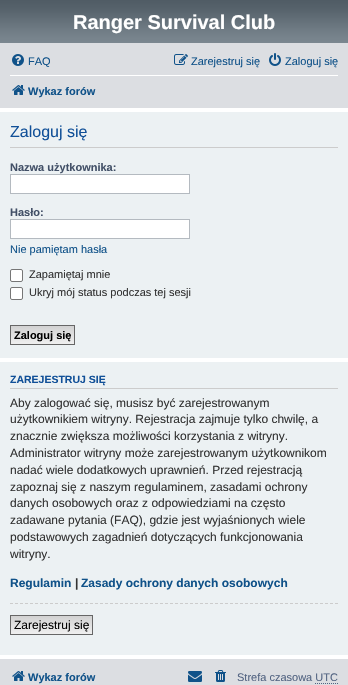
#include "include/core/SkBlurTypes.h"
#include "include/core/SkCanvas.h"
#include "include/core/SkData.h"
#include "include/core/SkFont.h"
#include "include/core/SkFontMgr.h"
#include "include/core/SkImage.h"
#include "include/core/SkMaskFilter.h"
#include "include/core/SkPaint.h"
#include "include/core/SkPathBuilder.h"
#include "include/core/SkTextBlob.h"
#include "include/effects/SkDashPathEffect.h"
#include "include/effects/SkGradientShader.h"
#include "include/utils/SkParsePath.h"

extern sk_sp<SkFontMgr> fontMgr;

void draw(SkCanvas* canvas) {
    SkPaint p;
    p.setAntiAlias(true);
    auto font = [&](const char* family, int weight, float size, bool italic = false) {
        SkFontStyle style(weight, SkFontStyle::kNormal_Width,
            italic ? SkFontStyle::kItalic_Slant : SkFontStyle::kUpright_Slant);
        SkFont result(fontMgr->matchFamilyStyle(family, style), size);
        result.setSubpixel(true);
        return result;
    };
    auto drawPhoto = [&](const char* path, float l, float t, float r, float b) {
        auto image = SkImages::DeferredFromEncodedData(SkData::MakeFromFileName(path));
        canvas->drawImageRect(image, SkRect::MakeLTRB(l, t, r, b), SkSamplingOptions());
    };
    canvas->clear(0xFFFFFFFF);
    {
        const SkColor colors[] = {0xFF6E777F, 0xFF505C65, 0xFF56626B, 0xFF737F88, 0xFF7C8891};
        const float stops[] = {0, 0.01f, 0.2f, 0.75f, 1};
        const SkPoint ends[] = {{174, 0}, {174, 44}};
        p.setShader(SkGradientShader::MakeLinear(ends, colors, stops, 5, SkTileMode::kClamp));
        p.setAlpha(255);
    }
    canvas->drawRect(SkRect::MakeLTRB(0, 0, 348, 43), p);
    auto font1 = font("Liberation Sans", 700, 20);
    p.setShader(nullptr);
    p.setColor(0xFFFFFFFF);
    canvas->drawString("Ranger Survival Club", 73, 29, font1, p);
    p.setColor(0xFFDCDEE2);
    canvas->drawRect(SkRect::MakeLTRB(0, 43, 348, 108), p);
    drawPhoto("media/1.png", 12, 54, 24, 66);
    auto font2 = font("Liberation Sans", 400, 11);
    p.setColor(0xFF105289);
    canvas->drawString("FAQ", 28, 65, font2, p);
    drawPhoto("media/2.png", 174, 54, 188, 65);
    canvas->drawString("Zarejestruj się", 191, 65, font2, p);
    drawPhoto("media/3.png", 269, 53, 281, 66);
    canvas->drawString("Zaloguj się", 285, 65, font2, p);
    p.setColor(0xFFFFFFFF);
    canvas->drawRect(SkRect::MakeLTRB(10, 75, 338, 76), p);
    drawPhoto("media/4.png", 12, 85, 25, 95);
    auto font3 = font("Liberation Sans", 700, 11);
    p.setColor(0xFF105289);
    canvas->drawString("Wykaz forów", 28, 95, font3, p);
    p.setColor(0xFFECF1F3);
    canvas->drawRect(SkRect::MakeLTRB(0, 112, 348, 358), p);
    p.setColor(0xFFCCCCCC);
    canvas->drawRect(SkRect::MakeLTRB(10, 147, 338, 148), p);
    auto font4 = font("Liberation Sans", 400, 16);
    p.setColor(0xFF115098);
    canvas->drawString("Zaloguj się", 10, 137, font4, p);
    p.setColor(0xFF425067);
    canvas->drawString("Nazwa użytkownika:", 10, 171, font3, p);
    p.setColor(0xFFFFFFFF);
    canvas->drawRect(SkRect::MakeLTRB(10.5f, 174.5f, 189.5f, 193.5f), p);
    p.setStyle(SkPaint::kStroke_Style);
    p.setStrokeWidth(1);
    p.setColor(0xFFB4BAC0);
    canvas->drawRect(SkRect::MakeLTRB(10.5f, 174.5f, 189.5f, 193.5f), p);
    p.setStyle(SkPaint::kFill_Style);
    p.setColor(0xFF425067);
    canvas->drawString("Hasło:", 10, 216, font3, p);
    p.setColor(0xFFFFFFFF);
    canvas->drawRect(SkRect::MakeLTRB(10.5f, 219.5f, 189.5f, 238.5f), p);
    p.setStyle(SkPaint::kStroke_Style);
    p.setColor(0xFFB4BAC0);
    canvas->drawRect(SkRect::MakeLTRB(10.5f, 219.5f, 189.5f, 238.5f), p);
    p.setStyle(SkPaint::kFill_Style);
    p.setColor(0xFF105289);
    canvas->drawString("Nie pamiętam hasła", 10, 253, font2, p);
    p.setColor(0xFFFFFFFF);
    canvas->drawRoundRect(SkRect::MakeLTRB(10.5f, 269.5f, 22.5f, 281.5f), 1.5f, 1.5f, p);
    p.setStyle(SkPaint::kStroke_Style);
    p.setColor(0xFF767676);
    canvas->drawRoundRect(SkRect::MakeLTRB(10.5f, 269.5f, 22.5f, 281.5f), 1.5f, 1.5f, p);
    p.setStyle(SkPaint::kFill_Style);
    p.setColor(0xFF333333);
    canvas->drawString("Zapamiętaj mnie", 29, 278, font2, p);
    p.setColor(0xFFFFFFFF);
    canvas->drawRoundRect(SkRect::MakeLTRB(10.5f, 287.5f, 22.5f, 299.5f), 1.5f, 1.5f, p);
    p.setStyle(SkPaint::kStroke_Style);
    p.setColor(0xFF767676);
    canvas->drawRoundRect(SkRect::MakeLTRB(10.5f, 287.5f, 22.5f, 299.5f), 1.5f, 1.5f, p);
    p.setStyle(SkPaint::kFill_Style);
    p.setColor(0xFF333333);
    canvas->drawString("Ukryj mój status podczas tej sesji", 29, 296, font2, p);
    {
        const SkColor colors[] = {0xFFD2D2D2, 0xFFEFEFEF};
        const float stops[] = {0, 1};
        const SkPoint ends[] = {{43, 326}, {43, 344}};
        p.setShader(SkGradientShader::MakeLinear(ends, colors, stops, 2, SkTileMode::kClamp));
        p.setAlpha(255);
    }
    canvas->drawRect(SkRect::MakeLTRB(11, 326, 74, 344), p);
    p.setStyle(SkPaint::kStroke_Style);
    p.setShader(nullptr);
    p.setColor(0xFF666666);
    canvas->drawRect(SkRect::MakeLTRB(10.5f, 325.5f, 74.5f, 344.5f), p);
    p.setStyle(SkPaint::kFill_Style);
    p.setColor(0xFF000000);
    canvas->drawString("Zaloguj się", 14, 339, font3, p);
    p.setColor(0xFFECF1F3);
    canvas->drawRect(SkRect::MakeLTRB(0, 362, 348, 655), p);
    p.setColor(0xFFCCCCCC);
    canvas->drawRect(SkRect::MakeLTRB(10, 388, 338, 389), p);
    auto font5 = font("Liberation Sans", 700, 10.5f);
    p.setColor(0xFF115098);
    canvas->drawString("ZAREJESTRUJ SIĘ", 10, 383, font5, p);
    auto font6 = font("Liberation Sans", 400, 12);
    p.setColor(0xFF333333);
    {
        const struct { const char* s; float x, y; } items[] = {
            {"Aby zalogować się, musisz być zarejestrowanym", 10, 407},
            {"użytkownikiem witryny. Rejestracja zajmuje tylko chwilę, a", 10, 423},
            {"znacznie zwiększa możliwości korzystania z witryny.", 10, 440},
            {"Administrator witryny może zarejestrowanym użytkownikom", 10, 457},
            {"nadać wiele dodatkowych uprawnień. Przed rejestracją", 10, 474},
            {"zapoznaj się z naszym regulaminem, zasadami ochrony", 10, 491},
            {"danych osobowych oraz z odpowiedziami na często", 10, 507},
            {"zadawane pytania (FAQ), gdzie jest wyjaśnionych wiele", 10, 524},
            {"podstawowych zagadnień dotyczących funkcjonowania", 10, 541},
            {"witryny.", 10, 558},
        };
        for (auto [s, x, y] : items) {
            canvas->drawString(s, x, y, font6, p);
        }
    }
    auto font7 = font("Liberation Sans", 700, 12);
    p.setColor(0xFF105289);
    canvas->drawString("Regulamin", 10, 587, font7, p);
    p.setColor(0xFF333333);
    canvas->drawString("|", 75, 587, font7, p);
    p.setColor(0xFF105289);
    canvas->drawString("Zasady ochrony danych osobowych", 81, 587, font7, p);
    p.setStyle(SkPaint::kStroke_Style);
    p.setColor(0xFFCCCCCC);
    p.setPathEffect(SkDashPathEffect::Make({{3, 2}}, 0));
    canvas->drawPath(SkPathBuilder().moveTo(10, 603.5f).lineTo(338, 603.5f).detach(), p);
    p.setPathEffect(nullptr);
    p.setStyle(SkPaint::kFill_Style);
    {
        const SkColor colors[] = {0xFFD2D2D2, 0xFFEFEFEF};
        const float stops[] = {0, 1};
        const SkPoint ends[] = {{52, 616}, {52, 634}};
        p.setShader(SkGradientShader::MakeLinear(ends, colors, stops, 2, SkTileMode::kClamp));
        p.setAlpha(255);
    }
    canvas->drawRect(SkRect::MakeLTRB(11, 616, 92, 634), p);
    p.setStyle(SkPaint::kStroke_Style);
    p.setShader(nullptr);
    p.setColor(0xFF666666);
    canvas->drawRect(SkRect::MakeLTRB(10.5f, 615.5f, 92.5f, 634.5f), p);
    p.setStyle(SkPaint::kFill_Style);
    p.setColor(0xFF000000);
    canvas->drawString("Zarejestruj się", 14, 629, font6, p);
    p.setColor(0xFFDCDEE2);
    canvas->drawRect(SkRect::MakeLTRB(0, 659, 348, 685), p);
    drawPhoto("media/4.png", 12, 671, 25, 681);
    p.setColor(0xFF105289);
    canvas->drawString("Wykaz forów", 28, 681, font3, p);
    drawPhoto("media/5.png", 188, 671, 202, 682);
    drawPhoto("media/6.png", 215, 670, 226, 682);
    p.setColor(0xFF536482);
    canvas->drawString("Strefa czasowa UTC", 237, 681, font2, p);
    p.setStyle(SkPaint::kStroke_Style);
    p.setPathEffect(SkDashPathEffect::Make({{1, 1}}, 0));
    canvas->drawPath(SkPathBuilder().moveTo(315, 683.5f).lineTo(338, 683.5f).detach(), p);
    p.setPathEffect(nullptr);
}
